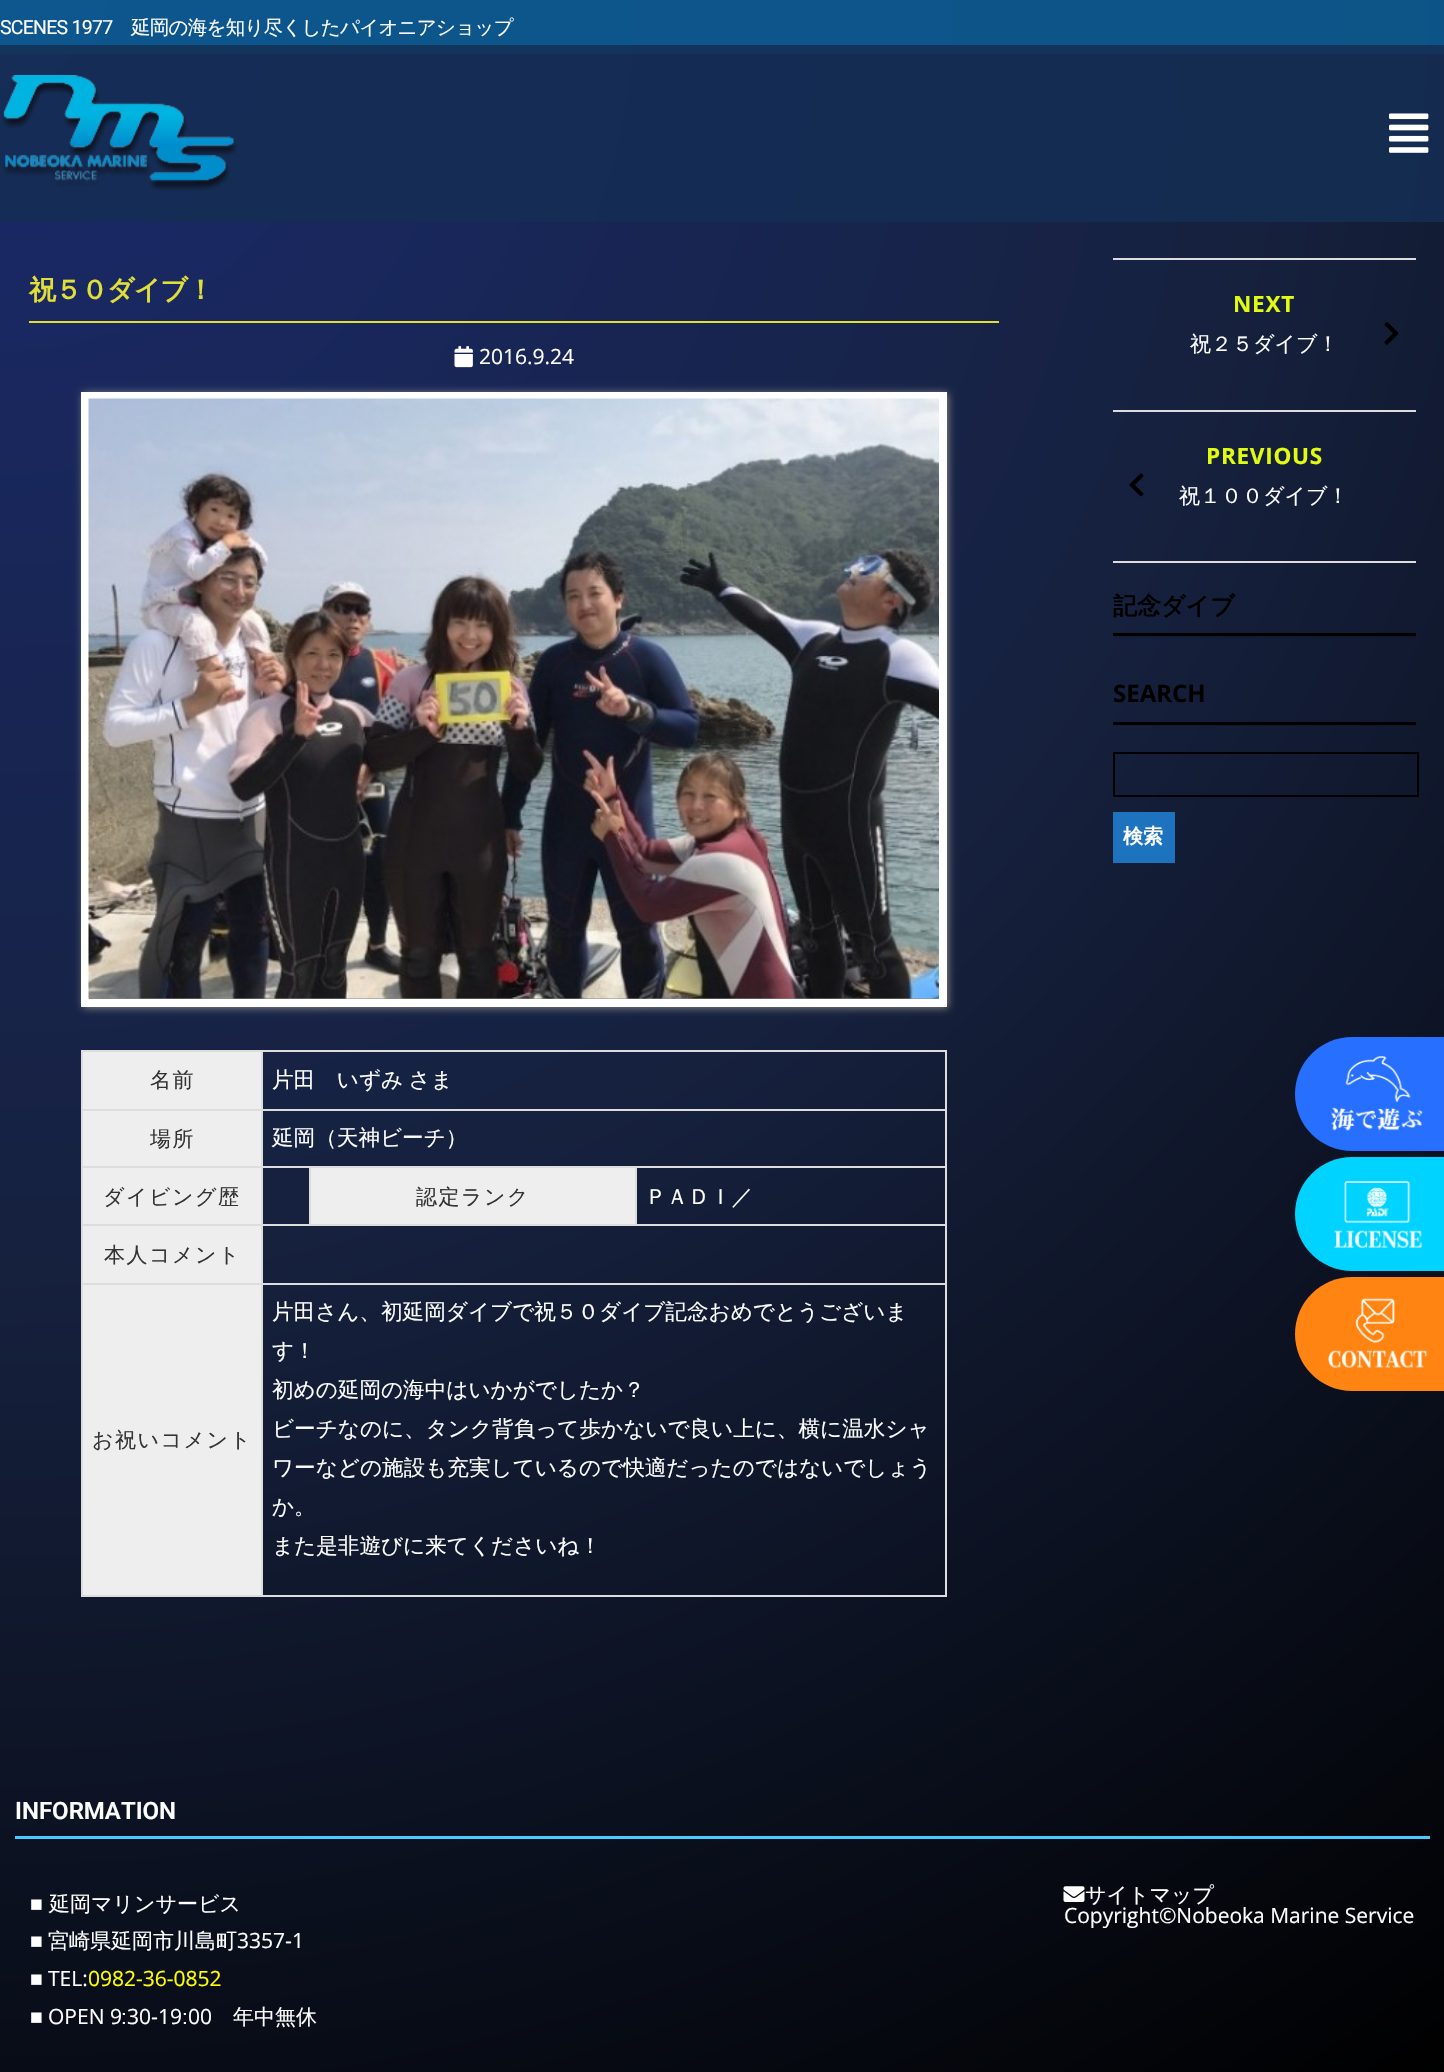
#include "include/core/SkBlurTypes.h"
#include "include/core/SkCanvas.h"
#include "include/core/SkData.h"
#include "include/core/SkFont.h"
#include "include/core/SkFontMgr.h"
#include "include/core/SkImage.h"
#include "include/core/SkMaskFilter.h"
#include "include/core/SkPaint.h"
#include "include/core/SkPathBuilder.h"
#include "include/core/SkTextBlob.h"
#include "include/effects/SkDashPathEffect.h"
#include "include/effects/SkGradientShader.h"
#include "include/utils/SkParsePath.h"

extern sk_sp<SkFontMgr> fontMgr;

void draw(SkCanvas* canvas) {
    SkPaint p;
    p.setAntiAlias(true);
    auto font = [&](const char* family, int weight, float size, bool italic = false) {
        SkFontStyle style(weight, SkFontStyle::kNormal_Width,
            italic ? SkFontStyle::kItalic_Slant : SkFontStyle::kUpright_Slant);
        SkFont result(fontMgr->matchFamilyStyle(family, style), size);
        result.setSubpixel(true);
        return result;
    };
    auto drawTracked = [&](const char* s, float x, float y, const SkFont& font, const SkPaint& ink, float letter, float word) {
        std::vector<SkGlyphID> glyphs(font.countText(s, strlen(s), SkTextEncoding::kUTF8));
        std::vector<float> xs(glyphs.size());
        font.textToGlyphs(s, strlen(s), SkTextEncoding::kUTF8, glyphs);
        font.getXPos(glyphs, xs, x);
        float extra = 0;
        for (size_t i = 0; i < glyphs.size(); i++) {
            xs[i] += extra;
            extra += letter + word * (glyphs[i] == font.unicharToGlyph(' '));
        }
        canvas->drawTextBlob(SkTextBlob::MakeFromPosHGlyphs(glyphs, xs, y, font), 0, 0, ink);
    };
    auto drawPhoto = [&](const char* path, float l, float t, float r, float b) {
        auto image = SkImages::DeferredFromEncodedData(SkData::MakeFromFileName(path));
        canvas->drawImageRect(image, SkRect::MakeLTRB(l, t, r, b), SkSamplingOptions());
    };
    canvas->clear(0xFFFFFFFF);
    {
        const SkColor colors[] = {0xFF1A2A6C, 0xFF16213E, 0xFF000000};
        const float stops[] = {0, 0.5f, 1};
        p.setShader(SkGradientShader::MakeRadial({0, -1.5f}, 2539, colors, stops, 3, SkTileMode::kClamp));
        p.setAlpha(255);
    }
    canvas->drawRect(SkRect::MakeLTRB(0, 222, 1444, 2072), p);
    {
        const SkColor colors[] = {0xFF152D57, 0xFF142C50, 0xFF112847};
        const float stops[] = {0, 0.5f, 1};
        p.setShader(SkGradientShader::MakeRadial({0, -1.5f}, 2539, colors, stops, 3, SkTileMode::kClamp));
        p.setAlpha(255);
    }
    canvas->drawRect(SkRect::MakeLTRB(0, 54, 1444, 222), p);
    {
        const SkColor colors[] = {0xFF0D568E, 0xFF0D5588, 0xFF09507F};
        const float stops[] = {0, 0.5f, 1};
        p.setShader(SkGradientShader::MakeRadial({0, -1.5f}, 2539, colors, stops, 3, SkTileMode::kClamp));
        p.setAlpha(255);
    }
    canvas->drawRect(SkRect::MakeLTRB(0, 0, 1444, 45), p);
    {
        const SkColor colors[] = {0xFF13345B, 0xFF13335A, 0xFF123359};
        const float stops[] = {0, 0.5f, 1};
        p.setShader(SkGradientShader::MakeRadial({0, -1.5f}, 2539, colors, stops, 3, SkTileMode::kClamp));
        p.setAlpha(255);
    }
    canvas->drawRect(SkRect::MakeLTRB(0, 45, 1444, 54), p);
    {
        const SkColor colors[] = {0xFF172661, 0xFF141E38, 0xFF000000};
        const float stops[] = {0, 0.5f, 1};
        p.setShader(SkGradientShader::MakeRadial({0, -1.5f}, 2539, colors, stops, 3, SkTileMode::kClamp));
        p.setAlpha(255);
    }
    canvas->drawRect(SkRect::MakeLTRB(1113, 725, 1416, 726), p);
    canvas->drawRect(SkRect::MakeLTRB(1113, 636, 1416, 638), p);
    auto font1 = font("Roboto", 400, 19.5f);
    p.setShader(nullptr);
    p.setColor(0xFFFFFFFF);
    drawTracked("SCENES 1977", 0, 34, font1, p, -0.75f, 0);
    auto font2 = font("WenQuanYi Zen Hei", 500, 19.5f);
    drawTracked("延岡の海を知り尽くしたパイオニアショップ", 131, 34, font2, p, -0.75f, 0);
    drawPhoto("media/1.png", 2, 75, 238, 191);
    drawPhoto("media/2.png", 1389, 113, 1429, 153);
    p.setColor(0xFF2770FF);
    canvas->drawPath(SkPathBuilder().moveTo(1352, 1037).lineTo(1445, 1037).lineTo(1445, 1151).lineTo(1352, 1151).cubicTo(1320.5f, 1151, 1295, 1125.5f, 1295, 1094).cubicTo(1295, 1062.5f, 1320.5f, 1037, 1352, 1037).close().detach(), p);
    drawPhoto("media/3.png", 1331, 1056, 1423, 1131);
    p.setColor(0xFF00D3FF);
    canvas->drawPath(SkPathBuilder().moveTo(1352, 1157).lineTo(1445, 1157).lineTo(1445, 1271).lineTo(1352, 1271).cubicTo(1320.5f, 1271, 1295, 1245.5f, 1295, 1214).cubicTo(1295, 1182.5f, 1320.5f, 1157, 1352, 1157).close().detach(), p);
    drawPhoto("media/4.png", 1334, 1181, 1423, 1248);
    p.setColor(0xFFFF8411);
    canvas->drawPath(SkPathBuilder().moveTo(1352, 1277).lineTo(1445, 1277).lineTo(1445, 1391).lineTo(1352, 1391).cubicTo(1320.5f, 1391, 1295, 1365.5f, 1295, 1334).cubicTo(1295, 1302.5f, 1320.5f, 1277, 1352, 1277).close().detach(), p);
    drawPhoto("media/5.png", 1328, 1298, 1428, 1368);
    p.setColor(0xFFE1DF37);
    canvas->drawRect(SkRect::MakeLTRB(29, 321, 999, 323), p);
    auto font3 = font("WenQuanYi Zen Hei", 700, 27);
    drawTracked("祝５０ダイブ！", 29, 299, font3, p, -1, 0);
    drawPhoto("media/6.png", 454, 346, 473, 368);
    auto font4 = font("Open Sans", 400, 21);
    p.setColor(0xFFFFFFFF);
    canvas->drawString("2016.9.24", 479, 364, font4, p);
    p.setColor(0xFF888888);
    p.setMaskFilter(SkMaskFilter::MakeBlur(kNormal_SkBlurStyle, 4));
    canvas->drawRect(SkRect::MakeLTRB(83, 393, 948, 1008), p);
    p.setMaskFilter(nullptr);
    p.setStyle(SkPaint::kStroke_Style);
    p.setStrokeWidth(8);
    p.setColor(0xFFFFFFFF);
    canvas->drawRect(SkRect::MakeLTRB(85, 396, 943, 1003), p);
    drawPhoto("media/7.png", 88, 398, 939, 999);
    p.setStyle(SkPaint::kFill_Style);
    {
        const struct { float l, t, r, b; SkColor color; } items[] = {
            {83, 1052, 261, 1109, 0xFFEEEEEE},
            {261, 1050, 947, 1052, 0xFFDDDDDD},
            {261, 1109, 947, 1111, 0xFFDDDDDD},
            {635, 1166, 947, 1168, 0xFFDDDDDD},
            {261, 1224, 947, 1226, 0xFFDDDDDD},
            {635, 1166, 637, 1226, 0xFFDDDDDD},
            {309, 1166, 636, 1168, 0xFFDDDDDD},
            {309, 1166, 311, 1226, 0xFFDDDDDD},
            {261, 1166, 311, 1168, 0xFFDDDDDD},
            {261, 1283, 947, 1285, 0xFFDDDDDD},
            {945, 1283, 947, 1596, 0xFFDDDDDD},
            {261, 1595, 947, 1597, 0xFFDDDDDD},
            {261, 1283, 263, 1596, 0xFFDDDDDD},
            {81, 1283, 263, 1285, 0xFFDDDDDD},
            {261, 1224, 263, 1284, 0xFFDDDDDD},
            {81, 1224, 263, 1226, 0xFFDDDDDD},
            {261, 1166, 263, 1226, 0xFFDDDDDD},
            {81, 1166, 263, 1168, 0xFFDDDDDD},
            {261, 1109, 263, 1167, 0xFFDDDDDD},
            {81, 1109, 263, 1111, 0xFFDDDDDD},
            {261, 1050, 263, 1110, 0xFFDDDDDD},
            {81, 1050, 263, 1052, 0xFFDDDDDD},
            {81, 1595, 263, 1597, 0xFFDDDDDD},
            {81, 1283, 83, 1596, 0xFFDDDDDD},
            {81, 1224, 83, 1284, 0xFFDDDDDD},
            {81, 1166, 83, 1226, 0xFFDDDDDD},
            {81, 1109, 83, 1167, 0xFFDDDDDD},
            {81, 1050, 83, 1110, 0xFFDDDDDD},
        };
        for (auto [l, t, r, b, color] : items) {
            p.setColor(color);
            canvas->drawRect(SkRect::MakeLTRB(l, t, r, b), p);
        }
    }
    auto font5 = font("WenQuanYi Zen Hei", 500, 21);
    p.setColor(0xFF333333);
    drawTracked("名前", 150, 1087, font5, p, 1.5f, 0);
    {
        const struct { float l, t, r, b; SkColor color; } items[] = {
            {945, 1224, 947, 1284, 0xFFDDDDDD},
            {945, 1166, 947, 1226, 0xFFDDDDDD},
            {945, 1109, 947, 1167, 0xFFDDDDDD},
            {945, 1050, 947, 1110, 0xFFDDDDDD},
        };
        for (auto [l, t, r, b, color] : items) {
            p.setColor(color);
            canvas->drawRect(SkRect::MakeLTRB(l, t, r, b), p);
        }
    }
    auto font6 = font("WenQuanYi Zen Hei", 500, 21.6f);
    p.setColor(0xFFFFFFFF);
    drawTracked("片田　いずみ さま", 272, 1087, font6, p, 0, -1);
    p.setColor(0xFFEEEEEE);
    canvas->drawRect(SkRect::MakeLTRB(83, 1111, 261, 1166), p);
    p.setColor(0xFF333333);
    drawTracked("場所", 150, 1146, font5, p, 1.5f, 0);
    p.setColor(0xFFFFFFFF);
    canvas->drawString("延岡（天神ビーチ）", 272, 1145, font6, p);
    p.setColor(0xFFEEEEEE);
    canvas->drawRect(SkRect::MakeLTRB(83, 1168, 261, 1224), p);
    p.setColor(0xFF333333);
    drawTracked("ダイビング歴", 103, 1204, font5, p, 1.5f, 0);
    p.setColor(0xFFEEEEEE);
    canvas->drawRect(SkRect::MakeLTRB(311, 1168, 635, 1224), p);
    p.setColor(0xFF333333);
    drawTracked("認定ランク", 416, 1204, font5, p, 1.5f, 0);
    p.setColor(0xFFFFFFFF);
    canvas->drawString("ＰＡＤＩ／", 645, 1204, font6, p);
    p.setColor(0xFFEEEEEE);
    canvas->drawRect(SkRect::MakeLTRB(83, 1226, 261, 1283), p);
    p.setColor(0xFF333333);
    drawTracked("本人コメント", 104, 1262, font5, p, 1.5f, 0);
    p.setColor(0xFFEEEEEE);
    canvas->drawRect(SkRect::MakeLTRB(83, 1285, 261, 1595), p);
    p.setColor(0xFF333333);
    drawTracked("お祝いコメント", 92, 1447, font5, p, 1.5f, 0);
    p.setColor(0xFFFFFFFF);
    {
        const struct { const char* s; float x, y; } items[] = {
            {"片田さん、初延岡ダイブで祝５０ダイブ記念おめでとうございま", 272, 1319},
            {"す！", 272, 1358},
            {"初めの延岡の海中はいかがでしたか？", 272, 1397},
            {"ビーチなのに、タンク背負って歩かないで良い上に、横に温水シャ", 272, 1436},
            {"ワーなどの施設も充実しているので快適だったのではないでしょう", 272, 1475},
            {"か。", 272, 1514},
            {"また是非遊びに来てくださいね！", 272, 1553},
        };
        for (auto [s, x, y] : items) {
            canvas->drawString(s, x, y, font6, p);
        }
    }
    p.setColor(0xFFDDDDDD);
    canvas->drawRect(SkRect::MakeLTRB(1113, 561, 1416, 563), p);
    canvas->drawRect(SkRect::MakeLTRB(1113, 258, 1416, 260), p);
    auto font7 = font("Open Sans", 700, 22.5f);
    p.setColor(0xFFE1FC11);
    drawTracked("NEXT", 1233, 312, font7, p, 0.75f, 0);
    p.setColor(0xFFFFFFFF);
    canvas->drawString("祝２５ダイブ！", 1190, 351, font5, p);
    drawPhoto("media/8.png", 1384, 322, 1399, 345);
    p.setColor(0xFFDDDDDD);
    canvas->drawRect(SkRect::MakeLTRB(1113, 410, 1416, 412), p);
    p.setColor(0xFFE1FC11);
    drawTracked("PREVIOUS", 1206, 464, font7, p, 0.75f, 0);
    drawPhoto("media/9.png", 1129, 473, 1144, 497);
    p.setColor(0xFFFFFFFF);
    canvas->drawString("祝１００ダイブ！", 1179, 503, font5, p);
    p.setColor(0xFF000000);
    canvas->drawRect(SkRect::MakeLTRB(1113, 633, 1416, 636), p);
    auto font8 = font("WenQuanYi Zen Hei", 700, 24);
    canvas->drawString("記念ダイブ", 1113, 614, font8, p);
    canvas->drawRect(SkRect::MakeLTRB(1113, 722, 1416, 725), p);
    auto font9 = font("Open Sans", 700, 24);
    canvas->drawString("SEARCH", 1113, 702, font9, p);
    p.setStyle(SkPaint::kStroke_Style);
    p.setStrokeWidth(2);
    canvas->drawRect(SkRect::MakeLTRB(1114, 753, 1418, 796), p);
    p.setStyle(SkPaint::kFill_Style);
    p.setColor(0xFF1E73BE);
    canvas->drawRect(SkRect::MakeLTRB(1113, 812, 1175, 863), p);
    auto font10 = font("WenQuanYi Zen Hei", 700, 20);
    p.setColor(0xFFFFFFFF);
    canvas->drawString("検索", 1123, 843, font10, p);
    p.setColor(0xFF49CBFF);
    canvas->drawRect(SkRect::MakeLTRB(15, 1836, 1430, 1839), p);
    auto font11 = font("Roboto", 600, 24);
    p.setColor(0xFFFFFFFF);
    canvas->drawString("INFORMATION", 15, 1819, font11, p);
    auto font12 = font("Liberation Sans", 400, 21);
    canvas->drawString("■", 30, 1911, font12, p);
    canvas->drawString("延岡マリンサービス", 49, 1911, font5, p);
    canvas->drawString("■", 30, 1948, font12, p);
    canvas->drawString("宮崎県延岡市川島町", 48, 1948, font5, p);
    canvas->drawString("3357", 237, 1948, font4, p);
    canvas->drawString("-", 285, 1948, font12, p);
    canvas->drawString("1", 292, 1948, font4, p);
    canvas->drawString("■", 30, 1986, font12, p);
    canvas->drawString("TEL:", 48, 1986, font4, p);
    p.setColor(0xFFFFFF00);
    canvas->drawString("0982-36-0852", 88, 1986, font4, p);
    p.setColor(0xFFFFFFFF);
    canvas->drawString("■", 30, 2024, font12, p);
    canvas->drawString("OPEN 9", 48, 2024, font4, p);
    canvas->drawString(":", 121, 2024, font12, p);
    canvas->drawString("30", 127, 2024, font4, p);
    canvas->drawString("-", 151, 2024, font12, p);
    canvas->drawString("19", 158, 2024, font4, p);
    canvas->drawString(":", 182, 2024, font12, p);
    canvas->drawString("00", 188, 2024, font4, p);
    canvas->drawString("年中無休", 233, 2024, font5, p);
    drawPhoto("media/10.png", 1063, 1886, 1085, 1902);
    canvas->drawString("サイトマップ", 1085, 1902, font5, p);
    canvas->drawString("Copyright©Nobeoka Marine Service", 1064, 1923, font4, p);
}
